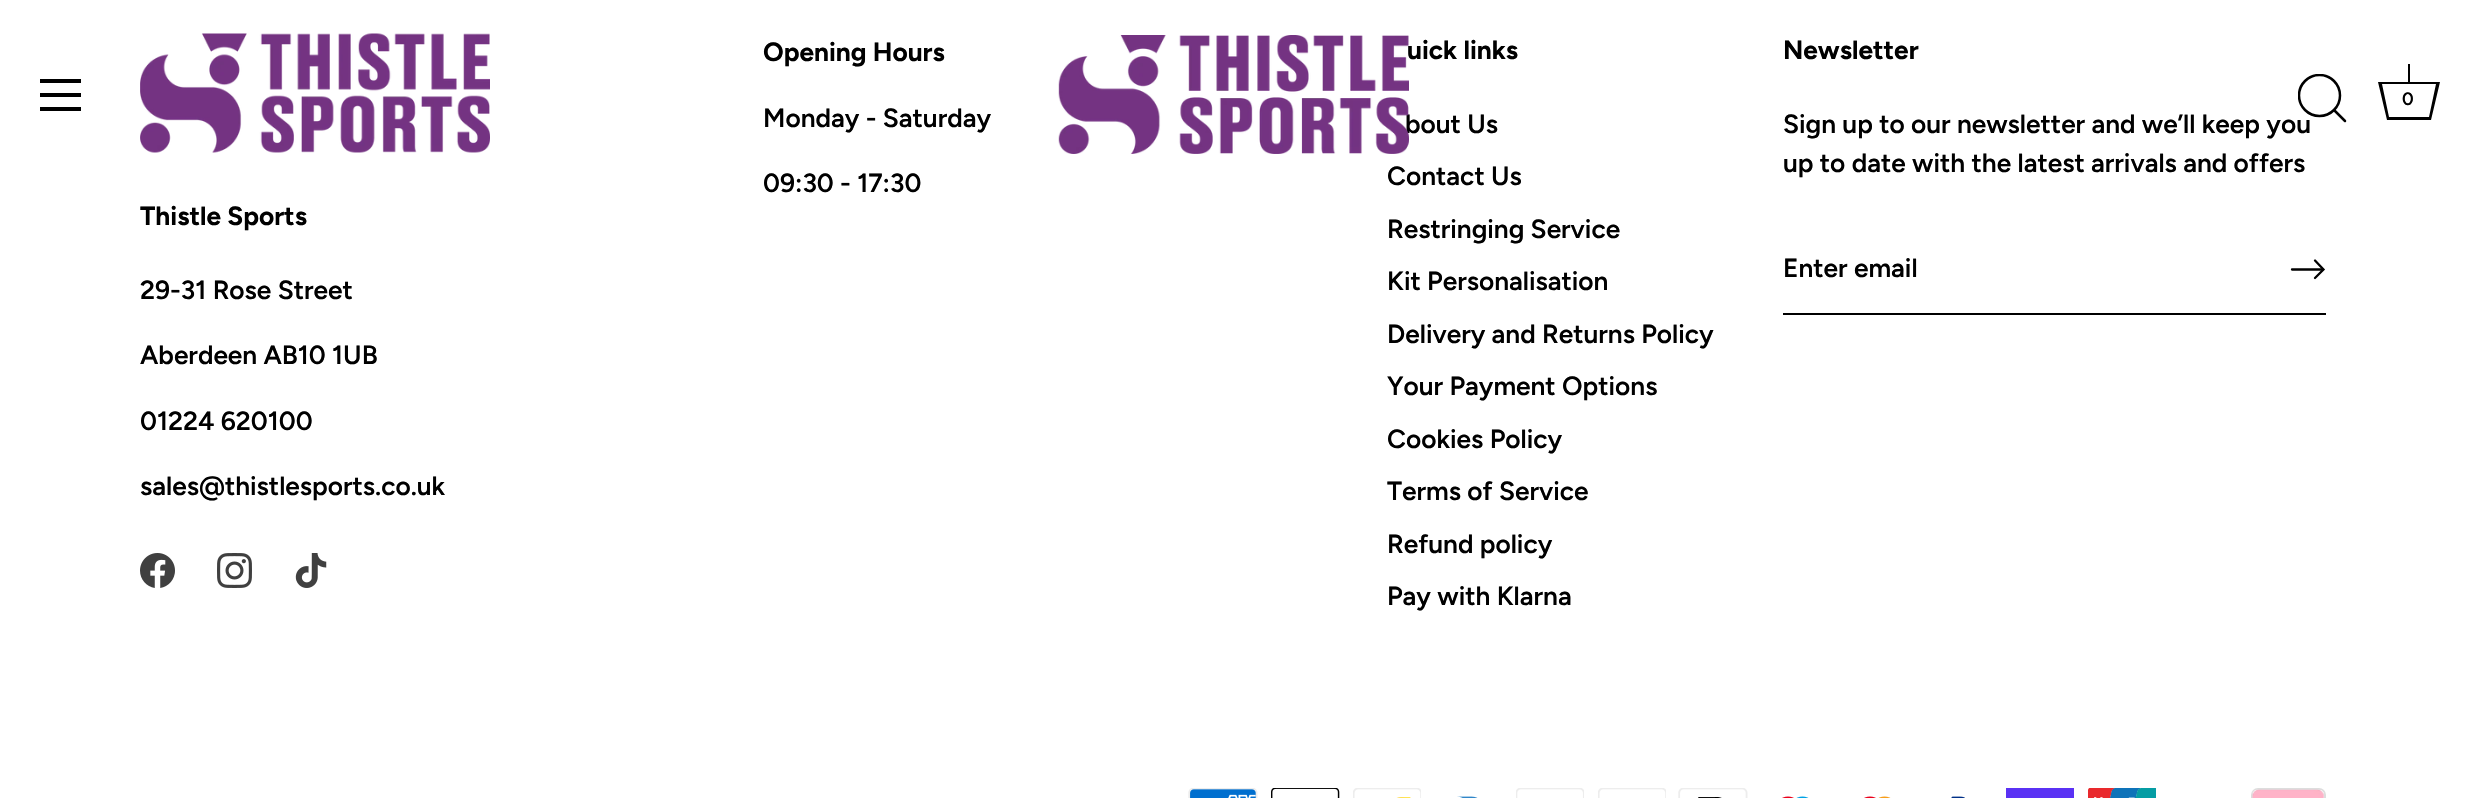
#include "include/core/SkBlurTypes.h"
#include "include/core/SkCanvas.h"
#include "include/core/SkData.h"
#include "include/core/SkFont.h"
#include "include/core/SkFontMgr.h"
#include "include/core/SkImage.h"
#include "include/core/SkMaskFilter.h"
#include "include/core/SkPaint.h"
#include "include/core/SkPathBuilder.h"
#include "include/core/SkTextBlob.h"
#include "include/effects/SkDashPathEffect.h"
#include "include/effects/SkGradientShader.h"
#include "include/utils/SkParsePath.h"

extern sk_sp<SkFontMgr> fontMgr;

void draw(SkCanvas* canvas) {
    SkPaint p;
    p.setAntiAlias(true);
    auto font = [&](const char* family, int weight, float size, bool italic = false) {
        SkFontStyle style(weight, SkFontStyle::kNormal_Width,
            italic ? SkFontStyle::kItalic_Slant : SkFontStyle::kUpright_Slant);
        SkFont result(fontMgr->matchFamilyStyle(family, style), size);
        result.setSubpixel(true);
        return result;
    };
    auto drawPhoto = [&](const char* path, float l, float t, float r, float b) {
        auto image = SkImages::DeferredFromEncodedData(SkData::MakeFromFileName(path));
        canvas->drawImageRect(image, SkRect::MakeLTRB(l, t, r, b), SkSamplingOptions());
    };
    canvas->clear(0xFFFFFFFF);
    auto font1 = font("Figtree", 700, 26.25f);
    p.setColor(0xFF000000);
    canvas->drawString("Opening Hours", 763, 61, font1, p);
    auto font2 = font("Figtree", 600, 26.25f);
    canvas->drawString("Monday - Saturday", 763, 127, font2, p);
    canvas->drawString("09:30 - 17:30", 763, 192, font2, p);
    canvas->drawString("uick links", 1407, 59, font1, p);
    {
        const struct { const char* s; float x, y; } items[] = {
            {"bout Us", 1405, 133},
            {"Contact Us", 1387, 185},
            {"Restringing Service", 1387, 238},
            {"Kit Personalisation", 1387, 290},
            {"Delivery and Returns Policy", 1387, 343},
            {"Your Payment Options", 1387, 395},
            {"Cookies Policy", 1387, 448},
            {"Terms of Service", 1387, 500},
            {"Refund policy", 1387, 553},
            {"Pay with Klarna", 1387, 605},
        };
        for (auto [s, x, y] : items) {
            canvas->drawString(s, x, y, font2, p);
        }
    }
    canvas->drawString("Newsletter", 1783, 59, font1, p);
    canvas->drawString("Sign up to our newsletter and we’ll keep you", 1783, 133, font2, p);
    canvas->drawString("up to date with the latest arrivals and offers", 1783, 172, font2, p);
    canvas->drawRect(SkRect::MakeLTRB(1783, 313, 2326, 315), p);
    canvas->drawString("Enter email", 1783, 277, font2, p);
    p.setStyle(SkPaint::kStroke_Style);
    p.setStrokeWidth(2.3f);
    p.setStrokeCap(SkPaint::kRound_Cap);
    canvas->drawPath(SkPathBuilder().moveTo(2315, 278).lineTo(2323.5f, 269.5f).lineTo(2315, 260.5f).detach(), p);
    p.setStrokeJoin(SkPaint::kRound_Join);
    canvas->drawPath(SkPathBuilder().moveTo(2322.5f, 269.5f).lineTo(2292, 269.5f).detach(), p);
    drawPhoto("media/1.png", 140, 33, 490, 153);
    p.setStyle(SkPaint::kFill_Style);
    canvas->drawString("Thistle Sports", 140, 225, font1, p);
    {
        const struct { const char* s; float x, y; } items[] = {
            {"29-31 Rose Street", 140, 299},
            {"Aberdeen AB10 1UB", 140, 364},
            {"01224 620100", 140, 430},
            {"sales@thistlesports.co.uk", 140, 495},
        };
        for (auto [s, x, y] : items) {
            canvas->drawString(s, x, y, font2, p);
        }
    }
    drawPhoto("media/2.png", 140, 553, 175, 588);
    drawPhoto("media/3.png", 217, 553, 252, 588);
    drawPhoto("media/4.png", 295, 553, 327, 588);
    drawPhoto("media/5.png", 1188, 788, 1258, 798);
    drawPhoto("media/6.png", 1271, 788, 1340, 798);
    drawPhoto("media/7.png", 1353, 788, 1421, 798);
    drawPhoto("media/8.png", 1516, 788, 1584, 798);
    drawPhoto("media/9.png", 1598, 788, 1666, 798);
    drawPhoto("media/10.png", 1678, 788, 1748, 798);
    p.setColor(0xFF5A31F4);
    canvas->drawRect(SkRect::MakeLTRB(2006, 788, 2074, 798), p);
    drawPhoto("media/11.png", 2088, 788, 2156, 798);
    p.setStyle(SkPaint::kStroke_Style);
    p.setStrokeWidth(2);
    p.setStrokeCap(SkPaint::kButt_Cap);
    p.setStrokeJoin(SkPaint::kMiter_Join);
    p.setColor(0xFFDDDDDD);
    canvas->drawRoundRect(SkRect::MakeLTRB(2252, 789, 2325, 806), 6, 6, p);
    drawPhoto("media/12.png", 1457, 796, 1478, 798);
    drawPhoto("media/13.png", 1782, 796, 1809, 798);
    drawPhoto("media/14.png", 1864, 796, 1891, 798);
    drawPhoto("media/15.png", 1951, 796, 1965, 798);
    drawPhoto("media/16.png", 2252, 789, 2324, 798);
    p.setStyle(SkPaint::kFill_Style);
    {
        const struct { float l, t, r, b; SkColor color; } items[] = {
            {40, 79, 81, 83, 0xFF000000},
            {40, 93, 81, 97, 0xFF000000},
            {40, 107, 81, 111, 0xFF000000},
        };
        for (auto [l, t, r, b, color] : items) {
            p.setColor(color);
            canvas->drawRect(SkRect::MakeLTRB(l, t, r, b), p);
        }
    }
    drawPhoto("media/17.png", 1058, 35, 1409, 154);
    canvas->save();
    canvas->clipRect(SkRect::MakeLTRB(2298, 74, 2349, 124));
    p.setStyle(SkPaint::kStroke_Style);
    p.setStrokeWidth(2.5f);
    canvas->drawCircle(2319.5f, 95.5f, 20.5f, p);
    canvas->restore();
    p.setStrokeCap(SkPaint::kRound_Cap);
    p.setStrokeJoin(SkPaint::kRound_Join);
    canvas->drawPath(SkPathBuilder().moveTo(2345, 121).lineTo(2334, 110).detach(), p);
    p.setStyle(SkPaint::kFill_Style);
    canvas->drawRect(SkRect::MakeLTRB(2408, 64, 2410, 82), p);
    canvas->drawPath(SkPathBuilder().moveTo(2436, 84).lineTo(2429, 117).lineTo(2389, 117).lineTo(2382, 84).lineTo(2436, 84).moveTo(2440, 82).lineTo(2378, 82).lineTo(2387, 120).lineTo(2431, 120).close().detach(), p);
    auto font3 = font("Figtree", 600, 18);
    canvas->drawString("0", 2402, 105, font3, p);
}
